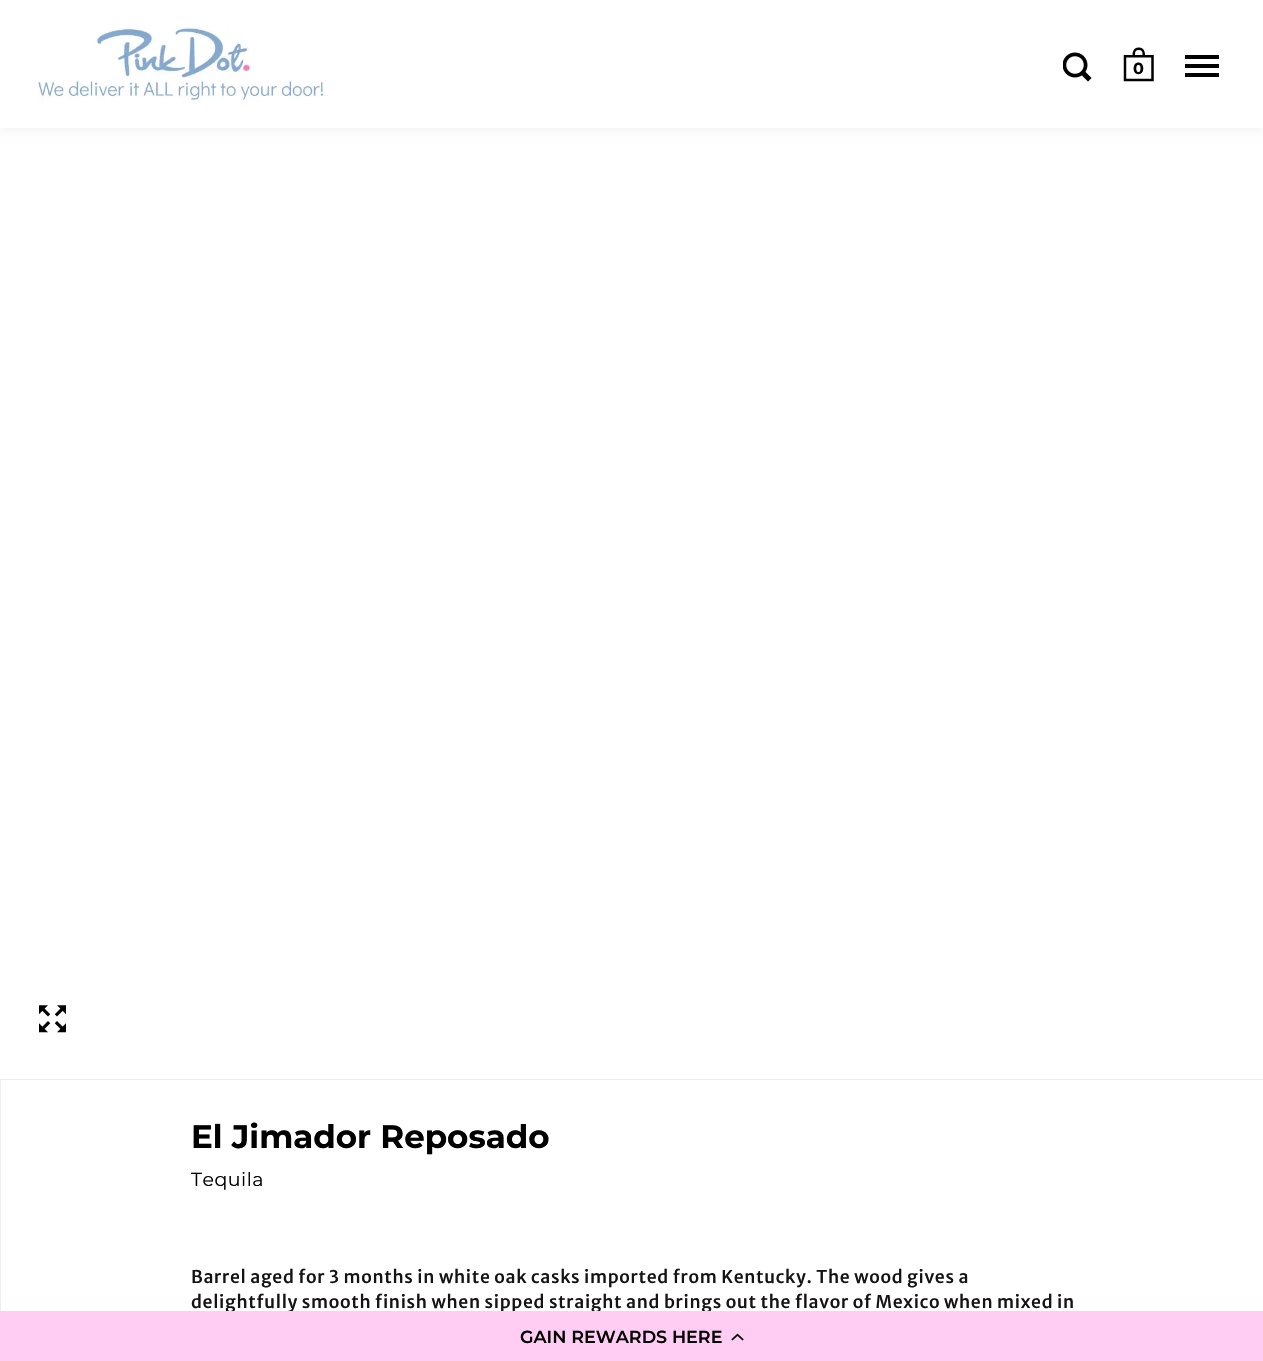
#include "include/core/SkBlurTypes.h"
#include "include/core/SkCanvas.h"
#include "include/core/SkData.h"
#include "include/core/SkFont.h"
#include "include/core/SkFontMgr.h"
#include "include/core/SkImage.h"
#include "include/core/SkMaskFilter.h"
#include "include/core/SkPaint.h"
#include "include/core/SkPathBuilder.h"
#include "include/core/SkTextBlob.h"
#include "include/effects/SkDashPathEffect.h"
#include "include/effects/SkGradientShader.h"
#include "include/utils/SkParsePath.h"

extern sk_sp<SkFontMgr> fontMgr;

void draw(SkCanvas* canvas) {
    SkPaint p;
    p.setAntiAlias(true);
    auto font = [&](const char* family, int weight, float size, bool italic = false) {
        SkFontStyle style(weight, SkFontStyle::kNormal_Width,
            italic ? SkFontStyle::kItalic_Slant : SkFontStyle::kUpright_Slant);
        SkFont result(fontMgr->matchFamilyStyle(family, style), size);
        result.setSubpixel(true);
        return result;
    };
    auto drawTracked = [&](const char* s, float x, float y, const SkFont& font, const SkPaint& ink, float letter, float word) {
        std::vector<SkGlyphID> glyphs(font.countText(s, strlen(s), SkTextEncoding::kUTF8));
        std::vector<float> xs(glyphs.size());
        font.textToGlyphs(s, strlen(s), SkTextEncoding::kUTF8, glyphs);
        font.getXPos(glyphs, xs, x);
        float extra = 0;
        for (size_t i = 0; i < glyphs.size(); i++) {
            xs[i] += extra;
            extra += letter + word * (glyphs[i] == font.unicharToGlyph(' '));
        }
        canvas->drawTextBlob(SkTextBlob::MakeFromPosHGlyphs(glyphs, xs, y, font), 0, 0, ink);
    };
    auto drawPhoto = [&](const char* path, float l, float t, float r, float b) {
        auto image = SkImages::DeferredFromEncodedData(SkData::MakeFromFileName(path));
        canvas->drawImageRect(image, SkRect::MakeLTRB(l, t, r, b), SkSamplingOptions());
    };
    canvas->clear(0xFFFFFFFF);
    p.setColor(0x14000000);
    p.setMaskFilter(SkMaskFilter::MakeBlur(kNormal_SkBlurStyle, 6));
    canvas->drawRect(SkRect::MakeLTRB(0, 0, 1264, 128), p);
    p.setMaskFilter(nullptr);
    p.setColor(0xFFFFFFFF);
    canvas->drawRect(SkRect::MakeLTRB(0, 0, 1263, 128), p);
    drawPhoto("media/1.png", 37, 25, 325, 102);
    drawPhoto("media/2.png", 1063, 52, 1092, 82);
    drawPhoto("media/3.png", 1123, 47, 1154, 82);
    auto font1 = font("Montserrat", 700, 16);
    p.setColor(0xFF000000);
    canvas->drawString("0", 1133, 74, font1, p);
    {
        const struct { float l, t, r, b; SkColor color; } items[] = {
            {1185, 64, 1219, 68, 0xFF000000},
            {1185, 55, 1219, 59, 0xFF000000},
            {1185, 73, 1219, 77, 0xFF000000},
            {0, 1079, 1263, 1080, 0xFFEDEDED},
        };
        for (auto [l, t, r, b, color] : items) {
            p.setColor(color);
            canvas->drawRect(SkRect::MakeLTRB(l, t, r, b), p);
        }
    }
    drawPhoto("media/4.png", 39, 1005, 66, 1033);
    canvas->drawRect(SkRect::MakeLTRB(0, 1080, 1, 1311), p);
    auto font2 = font("Montserrat", 700, 32.5f);
    p.setColor(0xFF000000);
    canvas->drawString("El Jimador Reposado", 191, 1148, font2, p);
    auto font3 = font("Montserrat", 400, 19);
    drawTracked("Tequila", 191, 1186, font3, p, 0.5f, 0);
    auto font4 = font("Merriweather Sans", 500, 17.5f);
    p.setColor(0xFF141414);
    drawTracked("Barrel aged for 3 months in white oak casks imported from Kentucky. The wood gives a", 191, 1283, font4, p, 0.68f, 0);
    drawTracked("delightfully smooth finish when sipped straight and brings out the flavor of Mexico when mixed in", 191, 1308, font4, p, 0.68f, 0);
    p.setColor(0xFFFFCCF4);
    canvas->drawRect(SkRect::MakeLTRB(0, 1311, 1263, 1361), p);
    auto font5 = font("Montserrat", 100, 17.5f);
    p.setColor(0xFF000000);
    canvas->drawString("GAIN REWARDS HERE", 520, 1343, font5, p);
    drawPhoto("media/5.png", 731, 1333, 744, 1341);
}
